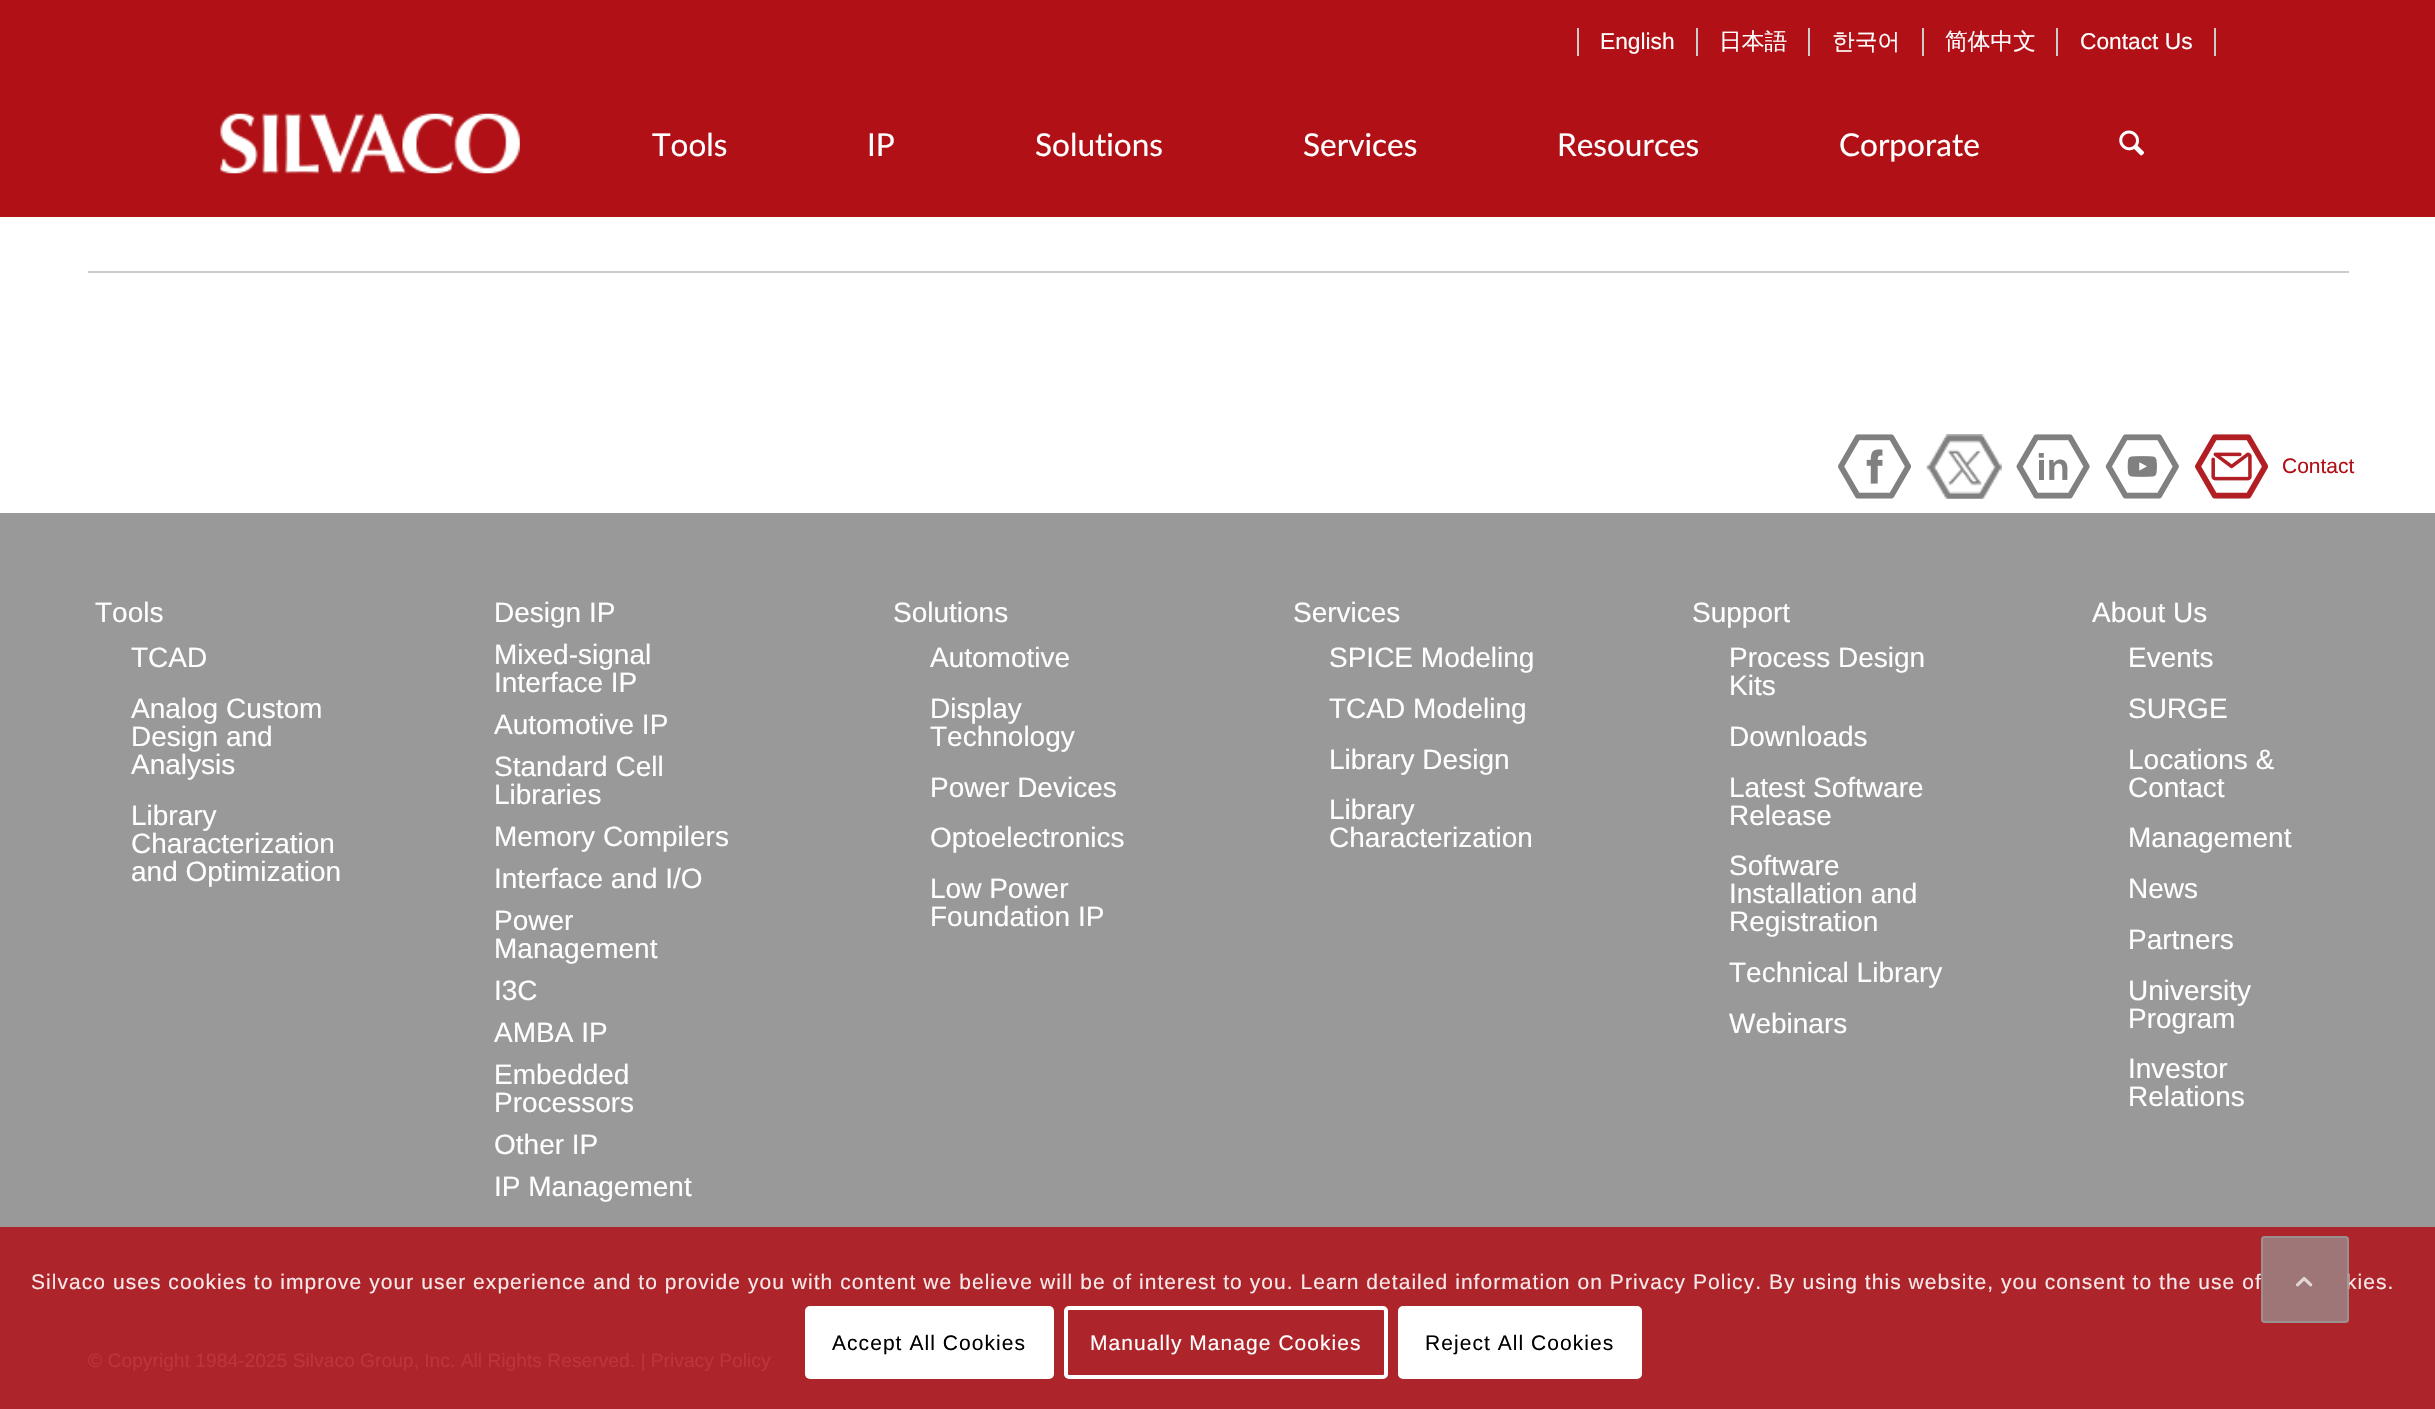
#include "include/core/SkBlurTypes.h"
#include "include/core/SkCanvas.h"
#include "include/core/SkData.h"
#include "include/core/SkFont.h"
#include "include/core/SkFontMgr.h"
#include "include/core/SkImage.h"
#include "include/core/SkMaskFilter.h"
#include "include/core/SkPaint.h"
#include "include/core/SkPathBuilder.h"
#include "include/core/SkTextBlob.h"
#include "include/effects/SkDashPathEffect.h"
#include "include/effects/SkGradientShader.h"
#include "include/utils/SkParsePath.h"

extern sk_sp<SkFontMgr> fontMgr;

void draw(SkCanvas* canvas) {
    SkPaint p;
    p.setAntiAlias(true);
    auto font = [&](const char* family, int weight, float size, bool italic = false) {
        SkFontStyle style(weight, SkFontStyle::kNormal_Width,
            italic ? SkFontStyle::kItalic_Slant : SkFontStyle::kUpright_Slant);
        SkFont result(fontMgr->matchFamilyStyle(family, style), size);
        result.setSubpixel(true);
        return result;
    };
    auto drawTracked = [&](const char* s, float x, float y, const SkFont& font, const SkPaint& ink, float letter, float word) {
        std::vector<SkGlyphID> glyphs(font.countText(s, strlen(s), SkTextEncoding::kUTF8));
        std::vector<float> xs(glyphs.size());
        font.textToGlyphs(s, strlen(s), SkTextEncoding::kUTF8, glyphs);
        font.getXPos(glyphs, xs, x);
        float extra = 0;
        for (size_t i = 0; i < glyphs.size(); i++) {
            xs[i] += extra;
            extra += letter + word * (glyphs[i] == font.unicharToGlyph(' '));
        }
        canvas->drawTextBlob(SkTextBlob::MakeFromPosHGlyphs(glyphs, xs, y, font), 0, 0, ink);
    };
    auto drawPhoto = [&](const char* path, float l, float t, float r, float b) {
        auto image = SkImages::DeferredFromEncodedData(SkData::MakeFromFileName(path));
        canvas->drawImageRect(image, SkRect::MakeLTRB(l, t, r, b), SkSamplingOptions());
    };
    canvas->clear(0xFFFFFFFF);
    {
        const struct { float l, t, r, b; SkColor color; } items[] = {
            {0, 0, 2435, 217, 0xFFB11116},
            {1696, 28, 1698, 56, 0xFFCCCCCC},
            {1577, 28, 1579, 56, 0xFFCCCCCC},
        };
        for (auto [l, t, r, b, color] : items) {
            p.setColor(color);
            canvas->drawRect(SkRect::MakeLTRB(l, t, r, b), p);
        }
    }
    auto font1 = font("Liberation Sans", 400, 22.75f);
    p.setColor(0xFFFFFFFF);
    canvas->drawString("English", 1600, 49, font1, p);
    p.setColor(0xFFCCCCCC);
    canvas->drawRect(SkRect::MakeLTRB(1808, 28, 1810, 56), p);
    auto font2 = font("WenQuanYi Zen Hei", 500, 22.75f);
    p.setColor(0xFFFFFFFF);
    canvas->drawString("日本語", 1719, 49, font2, p);
    p.setColor(0xFFCCCCCC);
    canvas->drawRect(SkRect::MakeLTRB(1922, 28, 1924, 56), p);
    p.setColor(0xFFFFFFFF);
    canvas->drawString("한국어", 1832, 49, font2, p);
    p.setColor(0xFFCCCCCC);
    canvas->drawRect(SkRect::MakeLTRB(2056, 28, 2058, 56), p);
    p.setColor(0xFFFFFFFF);
    canvas->drawString("简体中文", 1945, 49, font2, p);
    p.setColor(0xFFCCCCCC);
    canvas->drawRect(SkRect::MakeLTRB(2214, 28, 2216, 56), p);
    p.setColor(0xFFFFFFFF);
    canvas->drawString("Contact Us", 2080, 49, font1, p);
    drawPhoto("media/1.png", 220, 113, 520, 174);
    auto font3 = font("Lato", 400, 31.5f);
    {
        const struct { const char* s; float x, y; } items[] = {
            {"Tools", 652, 156},
            {"IP", 867, 156},
            {"Solutions", 1035, 156},
            {"Services", 1303, 156},
            {"Resources", 1557, 156},
            {"Corporate", 1839, 156},
        };
        for (auto [s, x, y] : items) {
            canvas->drawString(s, x, y, font3, p);
        }
    }
    drawPhoto("media/2.png", 2119, 130, 2145, 156);
    p.setColor(0xFFCCCCCC);
    canvas->drawRect(SkRect::MakeLTRB(88, 271, 2349, 273), p);
    drawPhoto("media/3.png", 1838, 434, 1911, 499);
    drawPhoto("media/4.png", 1926, 434, 2002, 499);
    drawPhoto("media/5.png", 2016, 434, 2090, 499);
    drawPhoto("media/6.png", 2105, 434, 2179, 499);
    drawPhoto("media/7.png", 2195, 434, 2268, 499);
    auto font4 = font("Liberation Sans", 400, 21);
    p.setColor(0xFFB11116);
    canvas->drawString("Contact", 2282, 473, font4, p);
    p.setColor(0xFF999999);
    canvas->drawRect(SkRect::MakeLTRB(0, 513, 2435, 1227), p);
    p.setColor(0xFFAD252A);
    canvas->drawRect(SkRect::MakeLTRB(0, 1227, 2435, 1409), p);
    auto font5 = font("Liberation Sans", 400, 28);
    p.setColor(0xFFFFFFFF);
    {
        const struct { const char* s; float x, y; } items[] = {
            {"Tools", 95, 622},
            {"TCAD", 131, 667},
            {"Analog Custom", 131, 718},
            {"Design and", 131, 746},
            {"Analysis", 131, 774},
            {"Library", 131, 825},
            {"Characterization", 131, 853},
            {"and Optimization", 131, 881},
            {"Design IP", 494, 622},
            {"Mixed-signal", 494, 664},
            {"Interface IP", 494, 692},
            {"Automotive IP", 494, 734},
            {"Standard Cell", 494, 776},
            {"Libraries", 494, 804},
            {"Memory Compilers", 494, 846},
            {"Interface and I/O", 494, 888},
            {"Power", 494, 930},
            {"Management", 494, 958},
            {"I3C", 494, 1000},
            {"AMBA IP", 494, 1042},
            {"Embedded", 494, 1084},
            {"Processors", 494, 1112},
            {"Other IP", 494, 1154},
            {"IP Management", 494, 1196},
            {"Solutions", 893, 622},
            {"Automotive", 930, 667},
            {"Display", 930, 718},
            {"Technology", 930, 746},
            {"Power Devices", 930, 797},
            {"Optoelectronics", 930, 847},
            {"Low Power", 930, 898},
            {"Foundation IP", 930, 926},
            {"Services", 1293, 622},
            {"SPICE Modeling", 1329, 667},
            {"TCAD Modeling", 1329, 718},
            {"Library Design", 1329, 769},
            {"Library", 1329, 819},
            {"Characterization", 1329, 847},
            {"Support", 1692, 622},
            {"Process Design", 1729, 667},
            {"Kits", 1729, 695},
            {"Downloads", 1729, 746},
            {"Latest Software", 1729, 797},
            {"Release", 1729, 825},
            {"Software", 1729, 875},
            {"Installation and", 1729, 903},
            {"Registration", 1729, 931},
            {"Technical Library", 1729, 982},
            {"Webinars", 1729, 1033},
            {"About Us", 2092, 622},
            {"Events", 2128, 667},
            {"SURGE", 2128, 718},
            {"Locations &", 2128, 769},
            {"Contact", 2128, 797},
            {"Management", 2128, 847},
            {"News", 2128, 898},
            {"Partners", 2128, 949},
            {"University", 2128, 1000},
            {"Program", 2128, 1028},
            {"Investor", 2128, 1078},
            {"Relations", 2128, 1106},
        };
        for (auto [s, x, y] : items) {
            canvas->drawString(s, x, y, font5, p);
        }
    }
    auto font6 = font("Liberation Sans", 400, 19.25f);
    p.setColor(0xFFBD3539);
    canvas->drawString("© Copyright 1984-2025 Silvaco Group, Inc. All Rights Reserved. | Privacy Policy", 88, 1367, font6, p);
    p.setColor(0xFFF7E9EA);
    drawTracked("kies.", 2346, 1289, font4, p, 1.05f, 0);
    p.setColor(0xB3999999);
    canvas->drawRoundRect(SkRect::MakeLTRB(2261, 1236, 2349, 1323), 4, 4, p);
    p.setStyle(SkPaint::kStroke_Style);
    p.setStrokeWidth(2);
    canvas->drawRoundRect(SkRect::MakeLTRB(2262, 1237, 2348, 1322), 3, 3, p);
    drawPhoto("media/8.png", 2296, 1277, 2313, 1287);
    p.setStyle(SkPaint::kFill_Style);
    p.setColor(0xFFF7E9EA);
    drawTracked("Silvaco uses cookies to improve your user experience and to provide you with content we believe will be of interest to you. Learn detailed information on Privacy Policy. By using this website, you consent to the use of", 31, 1289, font4, p, 1.05f, 0);
    p.setColor(0xFFFFFFFF);
    canvas->drawRoundRect(SkRect::MakeLTRB(805, 1306, 1054, 1379), 5, 5, p);
    p.setColor(0xFF000000);
    drawTracked("Accept All Cookies", 832, 1350, font4, p, 1.05f, 0);
    p.setStyle(SkPaint::kStroke_Style);
    p.setStrokeWidth(4);
    p.setColor(0xFFFFFFFF);
    canvas->drawRoundRect(SkRect::MakeLTRB(1066, 1308, 1386, 1377), 3, 3, p);
    p.setStyle(SkPaint::kFill_Style);
    drawTracked("Manually Manage Cookies", 1090, 1350, font4, p, 1.05f, 0);
    canvas->drawRoundRect(SkRect::MakeLTRB(1400, 1308, 1640, 1377), 3, 3, p);
    p.setStyle(SkPaint::kStroke_Style);
    canvas->drawRoundRect(SkRect::MakeLTRB(1400, 1308, 1640, 1377), 3, 3, p);
    p.setStyle(SkPaint::kFill_Style);
    p.setColor(0xFF000000);
    drawTracked("Reject All Cookies", 1425, 1350, font4, p, 1.05f, 0);
}
